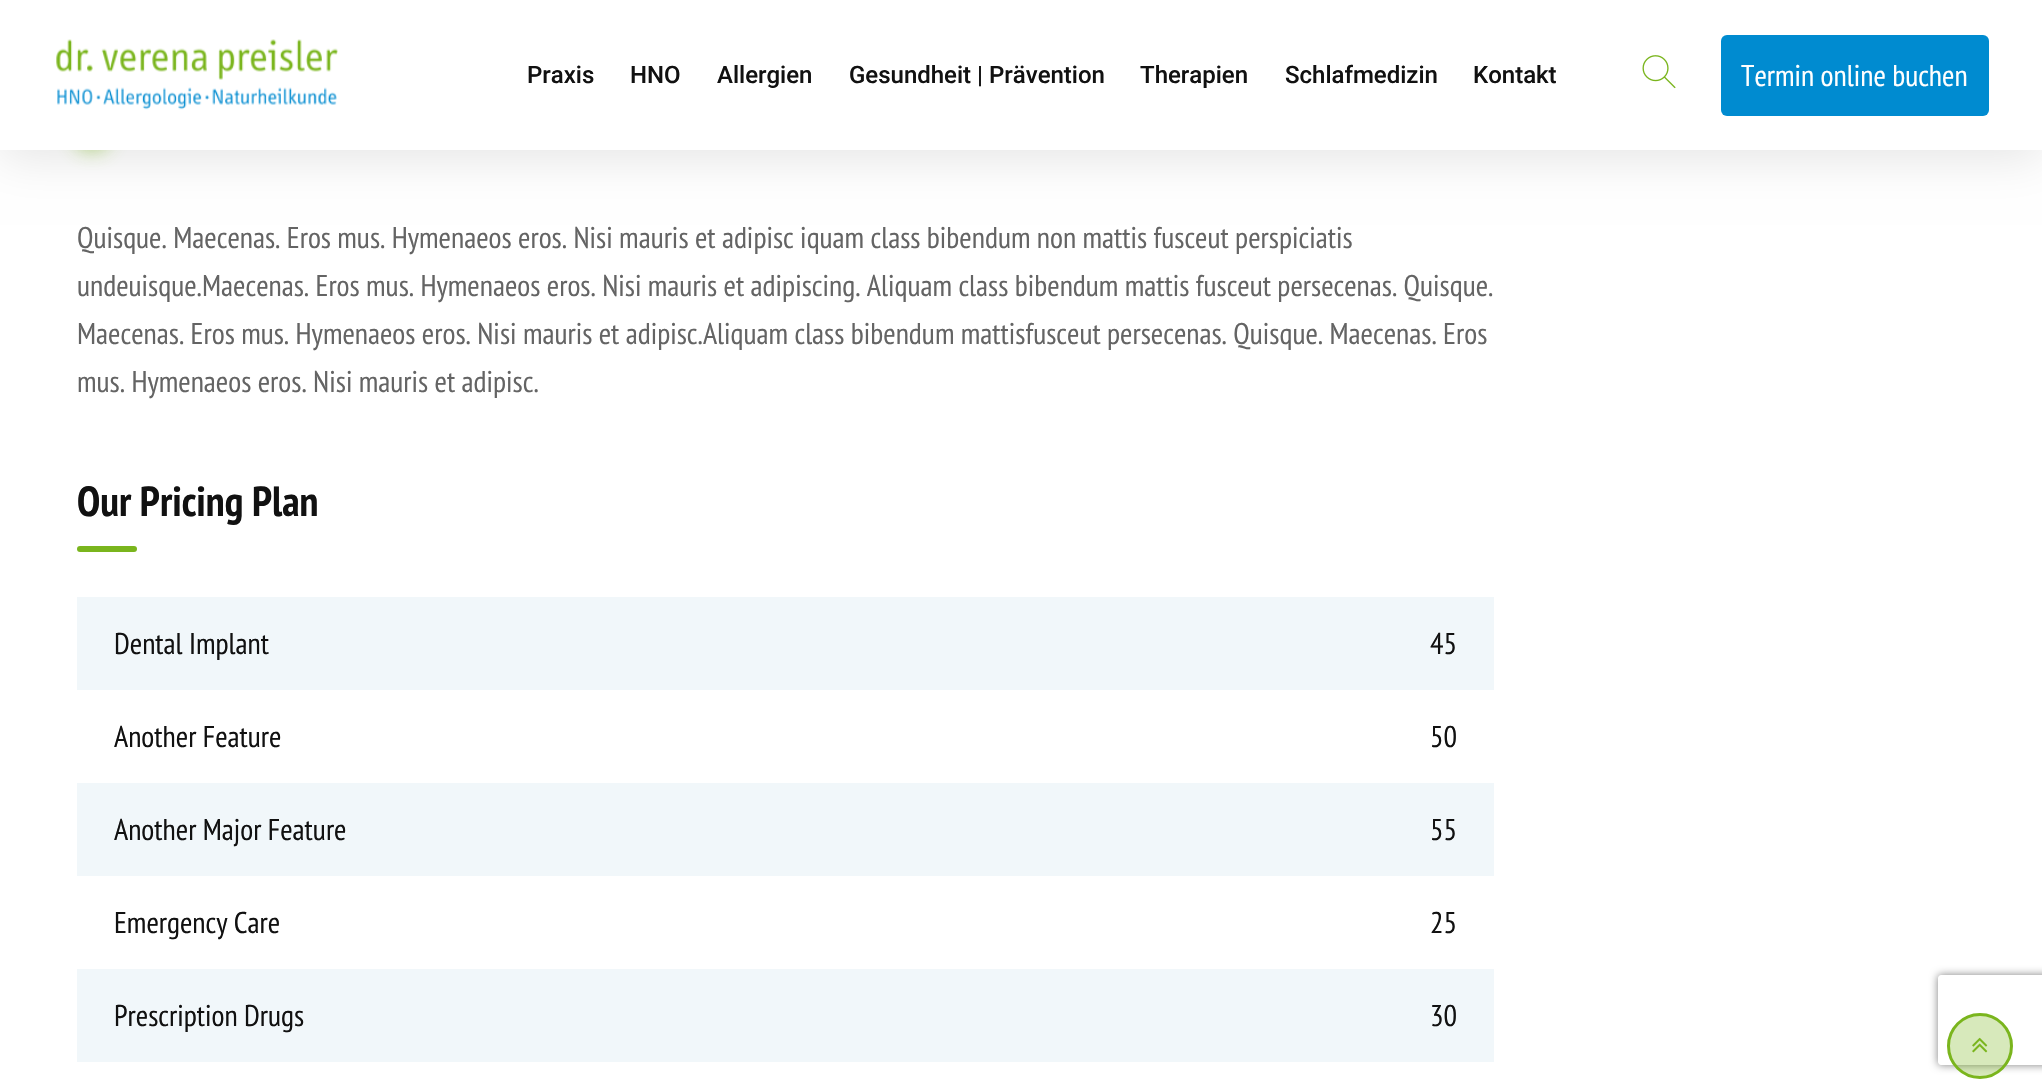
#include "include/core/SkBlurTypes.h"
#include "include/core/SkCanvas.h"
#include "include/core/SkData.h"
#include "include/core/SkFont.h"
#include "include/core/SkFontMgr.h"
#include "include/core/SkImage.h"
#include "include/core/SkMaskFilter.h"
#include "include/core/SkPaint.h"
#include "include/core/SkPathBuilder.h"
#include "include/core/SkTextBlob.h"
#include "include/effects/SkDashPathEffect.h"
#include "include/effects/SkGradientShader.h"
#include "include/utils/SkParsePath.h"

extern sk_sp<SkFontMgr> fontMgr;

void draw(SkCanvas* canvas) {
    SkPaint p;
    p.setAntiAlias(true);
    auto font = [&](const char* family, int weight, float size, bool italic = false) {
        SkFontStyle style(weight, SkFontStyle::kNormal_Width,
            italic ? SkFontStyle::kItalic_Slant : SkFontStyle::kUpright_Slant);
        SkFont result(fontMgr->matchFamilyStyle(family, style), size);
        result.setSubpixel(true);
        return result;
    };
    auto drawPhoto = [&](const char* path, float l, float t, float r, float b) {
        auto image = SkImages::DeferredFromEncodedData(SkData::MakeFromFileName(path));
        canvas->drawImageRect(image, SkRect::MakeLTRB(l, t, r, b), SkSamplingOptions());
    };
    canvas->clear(0xFFFFFFFF);
    p.setColor(0x1A000000);
    p.setMaskFilter(SkMaskFilter::MakeBlur(kNormal_SkBlurStyle, 22.5f));
    canvas->drawRect(SkRect::MakeLTRB(0, 8, 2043, 158), p);
    p.setMaskFilter(nullptr);
    p.setColor(0xBF7AB51D);
    p.setMaskFilter(SkMaskFilter::MakeBlur(kNormal_SkBlurStyle, 11));
    canvas->drawRoundRect(SkRect::MakeLTRB(77, 119, 107, 149), 15, 15, p);
    p.setMaskFilter(nullptr);
    p.setColor(0xFFFFFFFF);
    canvas->drawRect(SkRect::MakeLTRB(0, 0, 2042, 150), p);
    drawPhoto("media/1.png", 56, 39, 338, 110);
    auto font1 = font("Roboto", 500, 24);
    p.setColor(0xFF111111);
    {
        const struct { const char* s; float x, y; } items[] = {
            {"Praxis", 527, 83},
            {"HNO", 630, 83},
            {"Allergien", 717, 83},
            {"Gesundheit | Prävention", 849, 83},
            {"Therapien", 1140, 83},
            {"Schlafmedizin", 1285, 83},
            {"Kontakt", 1473, 83},
        };
        for (auto [s, x, y] : items) {
            canvas->drawString(s, x, y, font1, p);
        }
    }
    drawPhoto("media/2.png", 1642, 55, 1676, 89);
    p.setColor(0xFF008BD0);
    canvas->drawRoundRect(SkRect::MakeLTRB(1721, 35, 1989, 116), 6, 6, p);
    auto font2 = font("PT Sans Narrow", 400, 30);
    p.setColor(0xFFFFFFFF);
    canvas->drawString("Termin online buchen", 1741, 86, font2, p);
    p.setColor(0xFF646464);
    {
        const struct { const char* s; float x, y; } items[] = {
            {"Quisque. Maecenas. Eros mus. Hymenaeos eros. Nisi mauris et adipisc iquam class bibendum non mattis fusceut perspiciatis", 77, 248},
            {"undeuisque.Maecenas. Eros mus. Hymenaeos eros. Nisi mauris et adipiscing. Aliquam class bibendum mattis fusceut persecenas. Quisque.", 77, 296},
            {"Maecenas. Eros mus. Hymenaeos eros. Nisi mauris et adipisc.Aliquam class bibendum mattisfusceut persecenas. Quisque. Maecenas. Eros", 77, 344},
            {"mus. Hymenaeos eros. Nisi mauris et adipisc.", 77, 392},
        };
        for (auto [s, x, y] : items) {
            canvas->drawString(s, x, y, font2, p);
        }
    }
    auto font3 = font("PT Sans Narrow", 700, 42);
    p.setColor(0xFF111111);
    canvas->drawString("Our Pricing Plan", 77, 516, font3, p);
    p.setColor(0xFF7AB51D);
    canvas->drawRoundRect(SkRect::MakeLTRB(77, 546, 137, 552), 3, 3, p);
    p.setColor(0xFFF1F7FA);
    canvas->drawRect(SkRect::MakeLTRB(77, 597, 1494, 690), p);
    p.setColor(0xFF111111);
    {
        const struct { const char* s; float x, y; } items[] = {
            {"Dental Implant", 114, 654},
            {"45", 1430, 654},
            {"Another Feature", 114, 747},
            {"50", 1430, 747},
        };
        for (auto [s, x, y] : items) {
            canvas->drawString(s, x, y, font2, p);
        }
    }
    p.setColor(0xFFF1F7FA);
    canvas->drawRect(SkRect::MakeLTRB(77, 783, 1494, 876), p);
    p.setColor(0xFF111111);
    {
        const struct { const char* s; float x, y; } items[] = {
            {"Another Major Feature", 114, 840},
            {"55", 1430, 840},
            {"Emergency Care", 114, 933},
            {"25", 1430, 933},
        };
        for (auto [s, x, y] : items) {
            canvas->drawString(s, x, y, font2, p);
        }
    }
    p.setColor(0xFFF1F7FA);
    canvas->drawRect(SkRect::MakeLTRB(77, 969, 1494, 1062), p);
    p.setColor(0xFF111111);
    canvas->drawString("Prescription Drugs", 114, 1026, font2, p);
    canvas->drawString("30", 1430, 1026, font2, p);
    canvas->save();
    canvas->clipPath(SkPathBuilder(SkPathFillType::kEvenOdd).moveTo(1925, 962).lineTo(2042, 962).lineTo(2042, 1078).lineTo(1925, 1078).close().moveTo(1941, 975).lineTo(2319, 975).cubicTo(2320.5f, 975, 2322, 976.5f, 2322, 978).lineTo(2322, 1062).cubicTo(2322, 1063.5f, 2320.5f, 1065, 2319, 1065).lineTo(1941, 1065).cubicTo(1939.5f, 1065, 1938, 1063.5f, 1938, 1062).lineTo(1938, 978).cubicTo(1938, 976.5f, 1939.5f, 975, 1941, 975).close().detach(), true);
    p.setColor(0xFF808080);
    p.setMaskFilter(SkMaskFilter::MakeBlur(kNormal_SkBlurStyle, 4));
    canvas->drawRoundRect(SkRect::MakeLTRB(1938, 975, 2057, 1065), 3, 3, p);
    p.setMaskFilter(nullptr);
    canvas->restore();
    p.setColor(0x4D7AB51D);
    canvas->drawCircle(1980, 1046, 31.5f, p);
    p.setStyle(SkPaint::kStroke_Style);
    p.setStrokeWidth(3);
    p.setColor(0xFF7AB51D);
    canvas->drawCircle(1980, 1046, 31.5f, p);
    drawPhoto("media/3.png", 1972, 1037, 1988, 1053);
}
